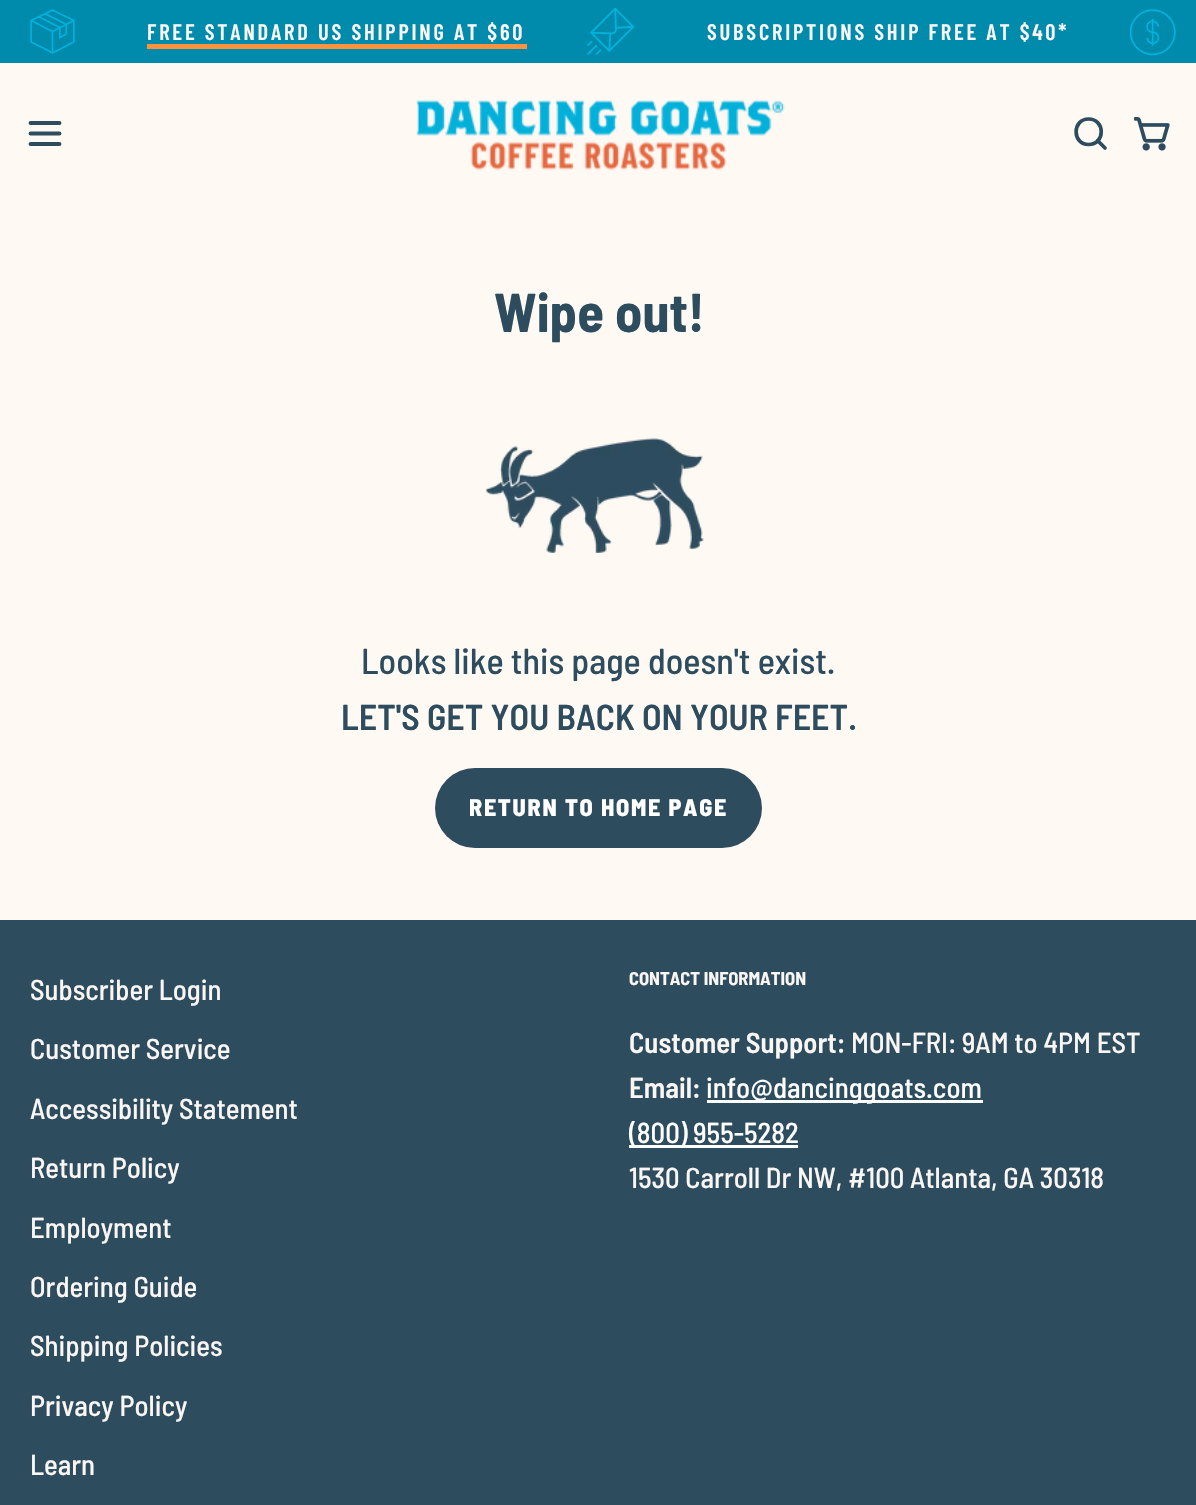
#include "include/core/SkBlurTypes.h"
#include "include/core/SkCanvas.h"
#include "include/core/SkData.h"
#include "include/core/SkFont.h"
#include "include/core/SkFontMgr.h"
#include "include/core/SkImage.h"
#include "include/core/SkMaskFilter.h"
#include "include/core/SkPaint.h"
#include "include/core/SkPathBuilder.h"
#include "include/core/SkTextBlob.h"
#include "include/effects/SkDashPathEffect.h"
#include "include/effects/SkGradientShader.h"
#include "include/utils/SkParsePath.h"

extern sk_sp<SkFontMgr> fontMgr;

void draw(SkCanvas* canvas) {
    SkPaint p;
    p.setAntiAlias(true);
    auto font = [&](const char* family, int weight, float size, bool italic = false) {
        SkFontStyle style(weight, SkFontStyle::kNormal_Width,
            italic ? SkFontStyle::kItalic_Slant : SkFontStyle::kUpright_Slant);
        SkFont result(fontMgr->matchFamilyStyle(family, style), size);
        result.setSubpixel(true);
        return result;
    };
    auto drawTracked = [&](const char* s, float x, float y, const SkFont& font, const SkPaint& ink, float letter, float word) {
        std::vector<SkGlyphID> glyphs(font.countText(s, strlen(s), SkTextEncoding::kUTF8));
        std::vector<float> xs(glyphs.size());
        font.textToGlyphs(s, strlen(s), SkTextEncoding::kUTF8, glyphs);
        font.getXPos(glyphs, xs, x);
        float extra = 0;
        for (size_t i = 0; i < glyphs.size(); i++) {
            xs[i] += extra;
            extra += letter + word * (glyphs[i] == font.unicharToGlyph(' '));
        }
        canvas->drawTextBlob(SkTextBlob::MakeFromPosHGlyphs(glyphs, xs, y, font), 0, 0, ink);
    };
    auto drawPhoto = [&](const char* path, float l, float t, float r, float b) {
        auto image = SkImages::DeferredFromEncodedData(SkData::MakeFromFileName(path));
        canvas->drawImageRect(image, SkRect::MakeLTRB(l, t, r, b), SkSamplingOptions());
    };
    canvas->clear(0xFFFFF9F4);
    p.setColor(0xFF008AAC);
    canvas->drawRect(SkRect::MakeLTRB(0, 0, 1196, 63), p);
    drawPhoto("media/1.png", 30, 9, 75, 54);
    auto font1 = font("Barlow Condensed", 600, 22.5f);
    p.setColor(0xFFF9F6F4);
    drawTracked("FREE STANDARD US SHIPPING AT $60", 147, 40, font1, p, 2.8f, 0);
    p.setColor(0xFFFF933D);
    canvas->drawRect(SkRect::MakeLTRB(147, 44, 527, 49), p);
    drawPhoto("media/2.png", 587, 8, 635, 55);
    p.setColor(0xFFF9F6F4);
    drawTracked("SUBSCRIPTIONS SHIP FREE AT $40*", 707, 40, font1, p, 2.8f, 0);
    drawPhoto("media/3.png", 1130, 9, 1176, 56);
    p.setStyle(SkPaint::kStroke_Style);
    p.setStrokeWidth(3.9f);
    p.setStrokeCap(SkPaint::kRound_Cap);
    p.setStrokeJoin(SkPaint::kRound_Join);
    p.setColor(0xFF2D4C5E);
    canvas->drawPath(SkPathBuilder().moveTo(30.5f, 133.5f).lineTo(59.5f, 133.5f).moveTo(30.5f, 123).lineTo(59.5f, 123).moveTo(30.5f, 144).lineTo(59.5f, 144).detach(), p);
    drawPhoto("media/4.png", 416, 100, 785, 171);
    p.setStrokeWidth(3.7f);
    canvas->drawPath(SkPathBuilder().moveTo(1088.5f, 144.5f).cubicTo(1105.5f, 144.5f, 1105.5f, 119, 1088.5f, 119).cubicTo(1072, 119, 1072, 144.5f, 1088.5f, 144.5f).close().moveTo(1097.5f, 140.5f).lineTo(1105, 148).detach(), p);
    drawPhoto("media/5.png", 1134, 117, 1170, 151);
    auto font2 = font("Barlow Semi Condensed", 700, 54.5f);
    p.setStyle(SkPaint::kFill_Style);
    canvas->drawString("Wipe out!", 494, 332, font2, p);
    drawPhoto("media/6.png", 485, 438, 704, 554);
    auto font3 = font("Barlow Semi Condensed", 500, 36);
    canvas->drawString("Looks like this page doesn't exist.", 361, 674, font3, p);
    auto font4 = font("Barlow Semi Condensed", 600, 36);
    canvas->drawString("LET'S GET YOU BACK ON YOUR FEET.", 341, 730, font4, p);
    canvas->drawRoundRect(SkRect::MakeLTRB(435, 768, 762, 848), 40, 40, p);
    auto font5 = font("Barlow Semi Condensed", 800, 24);
    p.setColor(0xFFFFFFFF);
    drawTracked("RETURN TO HOME PAGE", 469, 816, font5, p, 1.75f, 0);
    p.setColor(0xFF2D4C5E);
    canvas->drawRect(SkRect::MakeLTRB(0, 920, 1196, 1505), p);
    auto font6 = font("Barlow Semi Condensed", 500, 28.75f);
    p.setColor(0xFFF9F6F4);
    {
        const struct { const char* s; float x, y; } items[] = {
            {"Subscriber Login", 30, 1000},
            {"Customer Service", 30, 1059},
            {"Accessibility Statement", 30, 1119},
            {"Return Policy", 30, 1178},
            {"Employment", 30, 1238},
            {"Ordering Guide", 30, 1297},
            {"Shipping Policies", 30, 1356},
            {"Privacy Policy", 30, 1416},
            {"Learn", 30, 1475},
        };
        for (auto [s, x, y] : items) {
            canvas->drawString(s, x, y, font6, p);
        }
    }
    auto font7 = font("Barlow Semi Condensed", 700, 18.5f);
    canvas->drawString("CONTACT INFORMATION", 629, 985, font7, p);
    auto font8 = font("Barlow Semi Condensed", 600, 28.75f);
    canvas->drawString("Customer Support:", 629, 1053, font8, p);
    canvas->drawString("MON-FRI: 9AM to 4PM EST", 851, 1053, font6, p);
    canvas->drawString("Email:", 629, 1098, font8, p);
    p.setColor(0xFFFFFFFF);
    canvas->drawRect(SkRect::MakeLTRB(707, 1100, 983, 1103), p);
    canvas->drawString("info@dancinggoats.com", 706, 1098, font6, p);
    canvas->drawRect(SkRect::MakeLTRB(629, 1145, 798, 1148), p);
    canvas->drawString("(800) 955-5282", 629, 1143, font6, p);
    p.setColor(0xFFF9F6F4);
    canvas->drawString("1530 Carroll Dr NW, #100 Atlanta, GA 30318", 629, 1188, font6, p);
}
